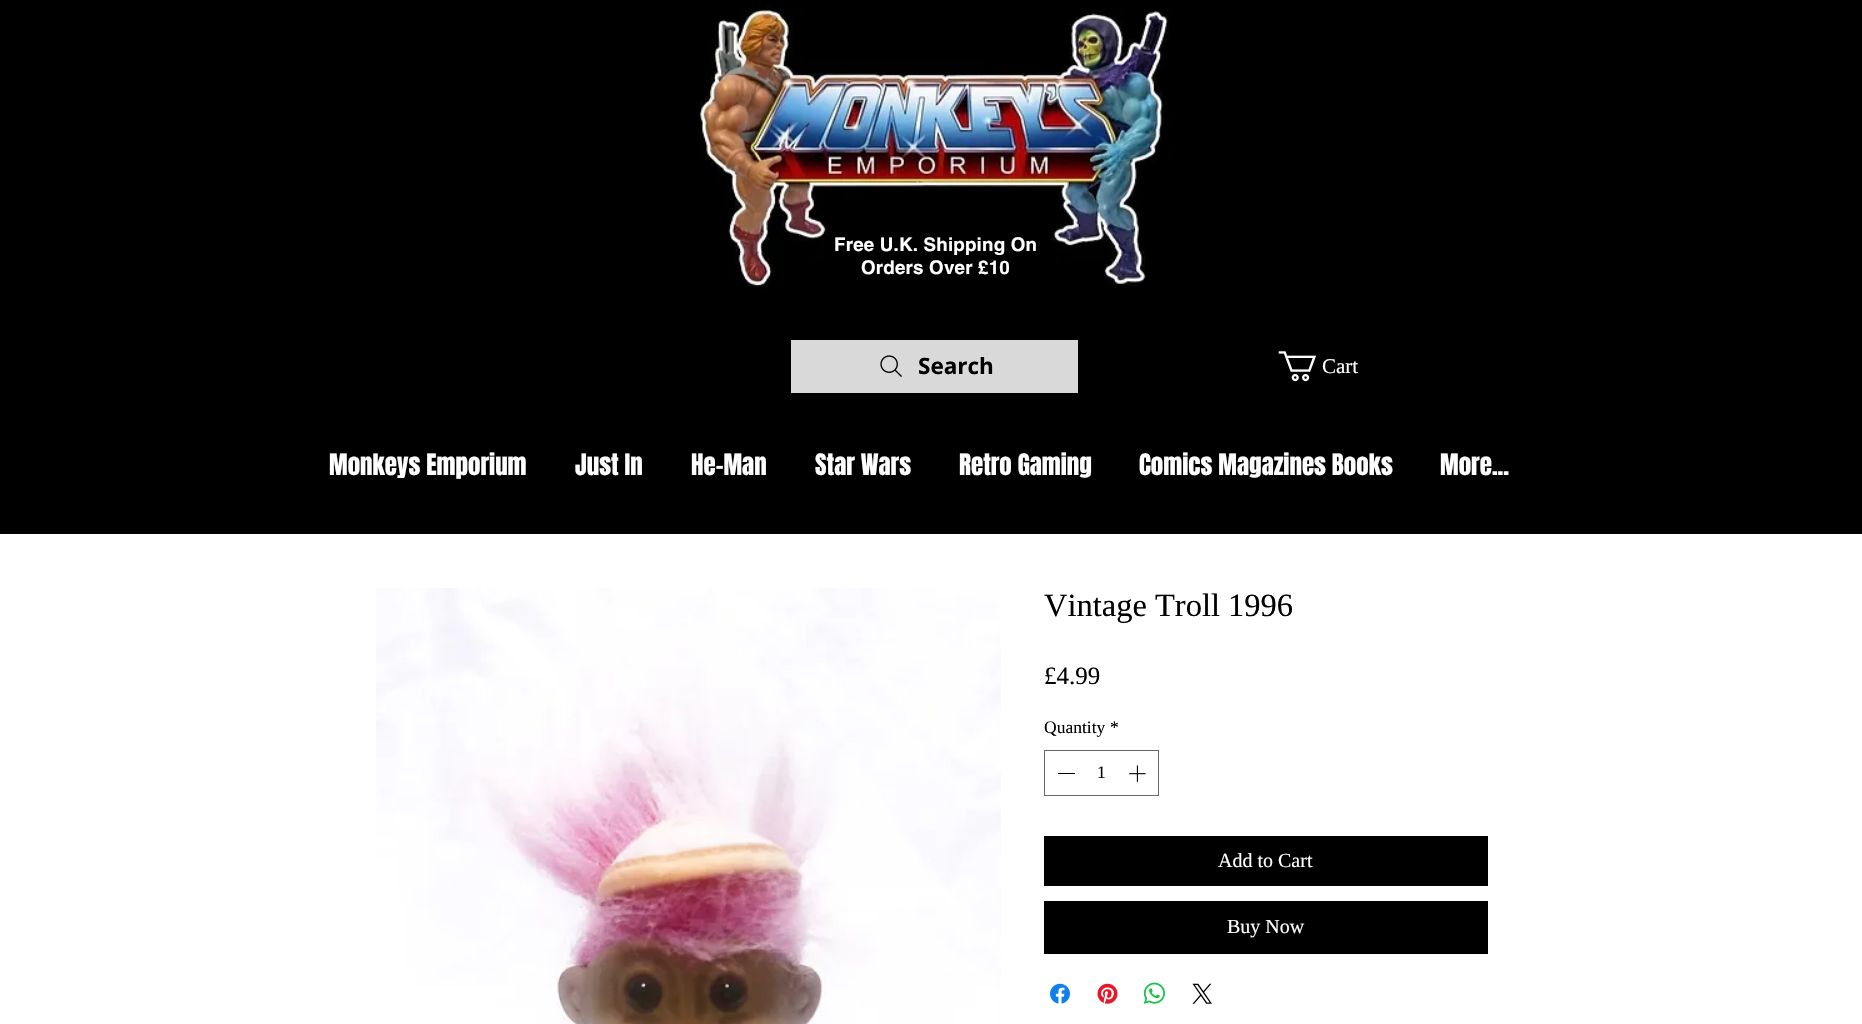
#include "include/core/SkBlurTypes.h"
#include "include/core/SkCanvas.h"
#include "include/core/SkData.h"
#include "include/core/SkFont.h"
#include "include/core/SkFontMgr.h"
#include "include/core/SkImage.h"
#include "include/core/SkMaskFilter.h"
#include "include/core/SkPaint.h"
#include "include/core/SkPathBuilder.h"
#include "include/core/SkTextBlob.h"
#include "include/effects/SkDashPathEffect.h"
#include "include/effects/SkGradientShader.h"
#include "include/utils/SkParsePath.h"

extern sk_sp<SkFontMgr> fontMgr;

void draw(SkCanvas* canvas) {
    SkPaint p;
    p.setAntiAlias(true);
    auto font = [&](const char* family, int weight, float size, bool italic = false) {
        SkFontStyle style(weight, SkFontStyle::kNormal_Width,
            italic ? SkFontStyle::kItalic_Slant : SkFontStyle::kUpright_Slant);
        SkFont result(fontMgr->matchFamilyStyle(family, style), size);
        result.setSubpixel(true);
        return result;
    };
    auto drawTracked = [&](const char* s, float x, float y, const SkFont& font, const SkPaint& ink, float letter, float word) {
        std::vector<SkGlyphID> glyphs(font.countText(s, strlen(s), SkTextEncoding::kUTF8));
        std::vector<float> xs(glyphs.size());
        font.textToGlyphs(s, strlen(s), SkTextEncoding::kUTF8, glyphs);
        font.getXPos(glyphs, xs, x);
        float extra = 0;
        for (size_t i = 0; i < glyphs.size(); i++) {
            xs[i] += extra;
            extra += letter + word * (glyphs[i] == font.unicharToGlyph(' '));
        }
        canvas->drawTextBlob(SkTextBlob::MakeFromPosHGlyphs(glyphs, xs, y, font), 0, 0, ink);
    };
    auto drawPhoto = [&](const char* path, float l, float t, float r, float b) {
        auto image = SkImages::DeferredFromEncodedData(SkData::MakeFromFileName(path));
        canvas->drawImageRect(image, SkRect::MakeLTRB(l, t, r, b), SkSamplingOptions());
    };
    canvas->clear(0xFFFFFFFF);
    p.setColor(0xFF000000);
    canvas->drawRect(SkRect::MakeLTRB(0, 0, 1862, 534), p);
    drawPhoto("media/1.png", 699, 6, 1172, 289);
    auto font1 = font("helvetica", 700, 18.75f);
    p.setColor(0xFFFFFFFF);
    drawTracked("Free U.K. Shipping On", 834, 251, font1, p, 0.2f, 0);
    drawTracked("Orders Over £10", 861, 274, font1, p, 0.2f, 0);
    p.setColor(0xFFD9D9D9);
    canvas->drawRect(SkRect::MakeLTRB(791, 340, 1078, 393), p);
    drawPhoto("media/2.png", 880, 355, 902, 377);
    auto font2 = font("Open Sans", 700, 22.5f);
    p.setColor(0xFF000000);
    canvas->drawString("Search", 918, 374, font2, p);
    drawPhoto("media/3.png", 1278, 351, 1316, 382);
    auto font3 = font("Liberation Serif", 400, 21);
    p.setColor(0xFFFFFFFF);
    canvas->drawString("Cart", 1322, 373, font3, p);
    auto font4 = font("Anton", 400, 25);
    {
        const struct { const char* s; float x, y; } items[] = {
            {"Monkeys Emporium", 329, 475},
            {"Just In", 575, 475},
            {"He-Man", 691, 475},
            {"Star Wars", 815, 475},
            {"Retro Gaming", 959, 475},
            {"Comics Magazines Books", 1139, 475},
            {"More...", 1440, 475},
        };
        for (auto [s, x, y] : items) {
            canvas->drawString(s, x, y, font4, p);
        }
    }
    drawPhoto("media/4.png", 376, 588, 1001, 1024);
    auto font5 = font("Liberation Serif", 400, 32.5f);
    p.setColor(0xFF000000);
    canvas->drawString("Vintage Troll 1996", 1044, 616, font5, p);
    auto font6 = font("Liberation Serif", 400, 25);
    canvas->drawString("£4.99", 1044, 684, font6, p);
    auto font7 = font("Liberation Serif", 400, 17.5f);
    canvas->drawString("Quantity", 1044, 733, font7, p);
    canvas->drawString("*", 1110, 733, font7, p);
    p.setStyle(SkPaint::kStroke_Style);
    p.setStrokeWidth(1);
    p.setColor(0xFF666666);
    canvas->drawRect(SkRect::MakeLTRB(1044.5f, 750.5f, 1158.5f, 795.5f), p);
    p.setStyle(SkPaint::kFill_Style);
    p.setColor(0xFF000000);
    canvas->drawRect(SkRect::MakeLTRB(1058, 773, 1075, 774), p);
    canvas->drawString("1", 1097, 778, font7, p);
    drawPhoto("media/5.png", 1129, 765, 1146, 782);
    canvas->drawRect(SkRect::MakeLTRB(1044, 836, 1488, 886), p);
    auto font8 = font("Liberation Serif", 400, 20);
    p.setColor(0xFFFFFFFF);
    canvas->drawString("Add to Cart", 1218, 867, font8, p);
    p.setColor(0xFF000000);
    canvas->drawRect(SkRect::MakeLTRB(1044, 901, 1488, 954), p);
    p.setColor(0xFFFFFFFF);
    canvas->drawString("Buy Now", 1227, 933, font8, p);
    drawPhoto("media/6.png", 1050, 983, 1070, 1004);
    drawPhoto("media/7.png", 1097, 983, 1118, 1004);
    drawPhoto("media/8.png", 1143, 982, 1165, 1004);
    drawPhoto("media/9.png", 1192, 983, 1212, 1004);
}
